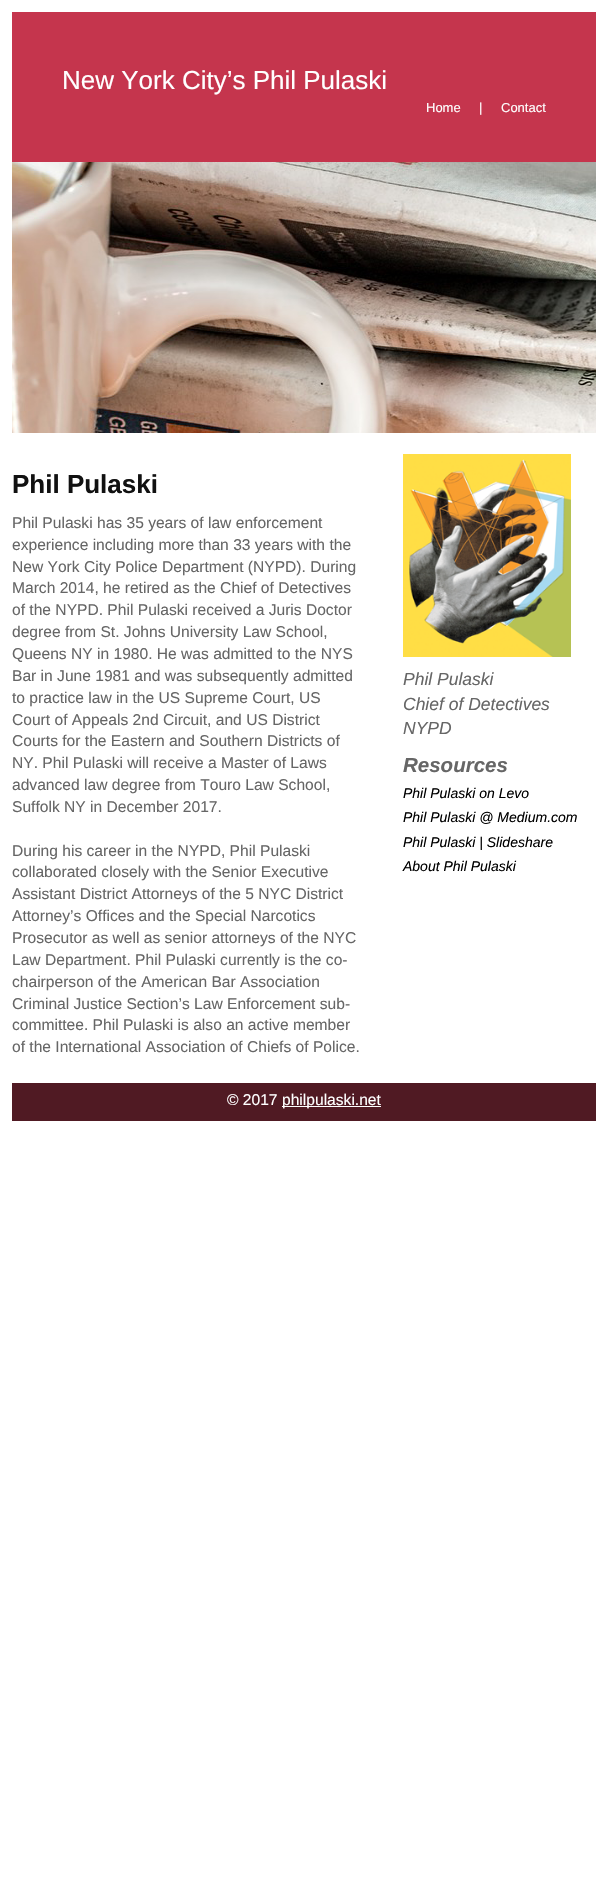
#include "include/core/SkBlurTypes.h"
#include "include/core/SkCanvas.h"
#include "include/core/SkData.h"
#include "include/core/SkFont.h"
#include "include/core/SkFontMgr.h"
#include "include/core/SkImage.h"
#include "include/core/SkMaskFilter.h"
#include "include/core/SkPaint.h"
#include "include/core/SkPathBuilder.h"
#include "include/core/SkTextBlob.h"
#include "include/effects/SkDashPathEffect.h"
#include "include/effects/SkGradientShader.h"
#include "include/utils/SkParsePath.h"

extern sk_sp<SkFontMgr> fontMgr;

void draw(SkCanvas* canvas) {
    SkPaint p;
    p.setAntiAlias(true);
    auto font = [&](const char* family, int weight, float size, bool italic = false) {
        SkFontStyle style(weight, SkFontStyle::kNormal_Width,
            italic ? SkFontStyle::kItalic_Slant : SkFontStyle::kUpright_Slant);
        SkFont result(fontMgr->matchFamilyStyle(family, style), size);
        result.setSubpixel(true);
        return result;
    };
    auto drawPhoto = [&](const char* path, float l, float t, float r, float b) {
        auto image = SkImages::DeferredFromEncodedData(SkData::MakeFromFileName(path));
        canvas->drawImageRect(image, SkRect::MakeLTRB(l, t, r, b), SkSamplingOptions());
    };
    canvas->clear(0xFFFFFFFF);
    p.setColor(0xFFC5354D);
    canvas->drawRect(SkRect::MakeLTRB(12, 12, 596, 162), p);
    auto font1 = font("Liberation Sans", 400, 26);
    p.setColor(0xFFFFFFFF);
    canvas->drawString("New York City’s Phil Pulaski", 62, 89, font1, p);
    auto font2 = font("Liberation Sans", 400, 13);
    {
        const struct { const char* s; float x, y; } items[] = {
            {"Home", 426, 112},
            {"|", 479, 112},
            {"Contact", 501, 112},
        };
        for (auto [s, x, y] : items) {
            canvas->drawString(s, x, y, font2, p);
        }
    }
    drawPhoto("media/1.png", 12, 162, 596, 433);
    auto font3 = font("Liberation Sans", 700, 26);
    p.setColor(0xFF111111);
    canvas->drawString("Phil Pulaski", 12, 493, font3, p);
    auto font4 = font("Liberation Sans", 400, 15.6f);
    p.setColor(0xFF666666);
    {
        const struct { const char* s; float x, y; } items[] = {
            {"Phil Pulaski has 35 years of law enforcement", 12, 528},
            {"experience including more than 33 years with the", 12, 550},
            {"New York City Police Department (NYPD). During", 12, 572},
            {"March 2014, he retired as the Chief of Detectives", 12, 593},
            {"of the NYPD. Phil Pulaski received a Juris Doctor", 12, 615},
            {"degree from St. Johns University Law School,", 12, 637},
            {"Queens NY in 1980. He was admitted to the NYS", 12, 659},
            {"Bar in June 1981 and was subsequently admitted", 12, 681},
            {"to practice law in the US Supreme Court, US", 12, 703},
            {"Court of Appeals 2nd Circuit, and US District", 12, 725},
            {"Courts for the Eastern and Southern Districts of", 12, 746},
            {"NY. Phil Pulaski will receive a Master of Laws", 12, 768},
            {"advanced law degree from Touro Law School,", 12, 790},
            {"Suffolk NY in December 2017.", 12, 812},
            {"During his career in the NYPD, Phil Pulaski", 12, 856},
            {"collaborated closely with the Senior Executive", 12, 877},
            {"Assistant District Attorneys of the 5 NYC District", 12, 899},
            {"Attorney’s Offices and the Special Narcotics", 12, 921},
            {"Prosecutor as well as senior attorneys of the NYC", 12, 943},
            {"Law Department. Phil Pulaski currently is the co-", 12, 965},
            {"chairperson of the American Bar Association", 12, 987},
            {"Criminal Justice Section’s Law Enforcement sub-", 12, 1009},
            {"committee. Phil Pulaski is also an active member", 12, 1030},
            {"of the International Association of Chiefs of Police.", 12, 1052},
        };
        for (auto [s, x, y] : items) {
            canvas->drawString(s, x, y, font4, p);
        }
    }
    drawPhoto("media/2.png", 403, 454, 571, 657);
    auto font5 = font("Liberation Sans", 400, 17.5f, true);
    {
        const struct { const char* s; float x, y; } items[] = {
            {"Phil Pulaski", 403, 685},
            {"Chief of Detectives", 403, 710},
            {"NYPD", 403, 734},
        };
        for (auto [s, x, y] : items) {
            canvas->drawString(s, x, y, font5, p);
        }
    }
    auto font6 = font("Liberation Sans", 700, 20.5f, true);
    canvas->drawString("Resources", 403, 772, font6, p);
    auto font7 = font("Liberation Sans", 400, 14, true);
    p.setColor(0xFF000000);
    {
        const struct { const char* s; float x, y; } items[] = {
            {"Phil Pulaski on Levo", 403, 798},
            {"Phil Pulaski @ Medium.com", 403, 822},
            {"Phil Pulaski | Slideshare", 403, 847},
            {"About Phil Pulaski", 403, 871},
        };
        for (auto [s, x, y] : items) {
            canvas->drawString(s, x, y, font7, p);
        }
    }
    p.setColor(0xFF501A23);
    canvas->drawRect(SkRect::MakeLTRB(12, 1083, 596, 1121), p);
    p.setColor(0xFFFFFFFF);
    canvas->drawString("© 2017", 227, 1105, font4, p);
    canvas->drawRect(SkRect::MakeLTRB(282, 1106, 381, 1107), p);
    canvas->drawString("philpulaski.net", 282, 1105, font4, p);
}
